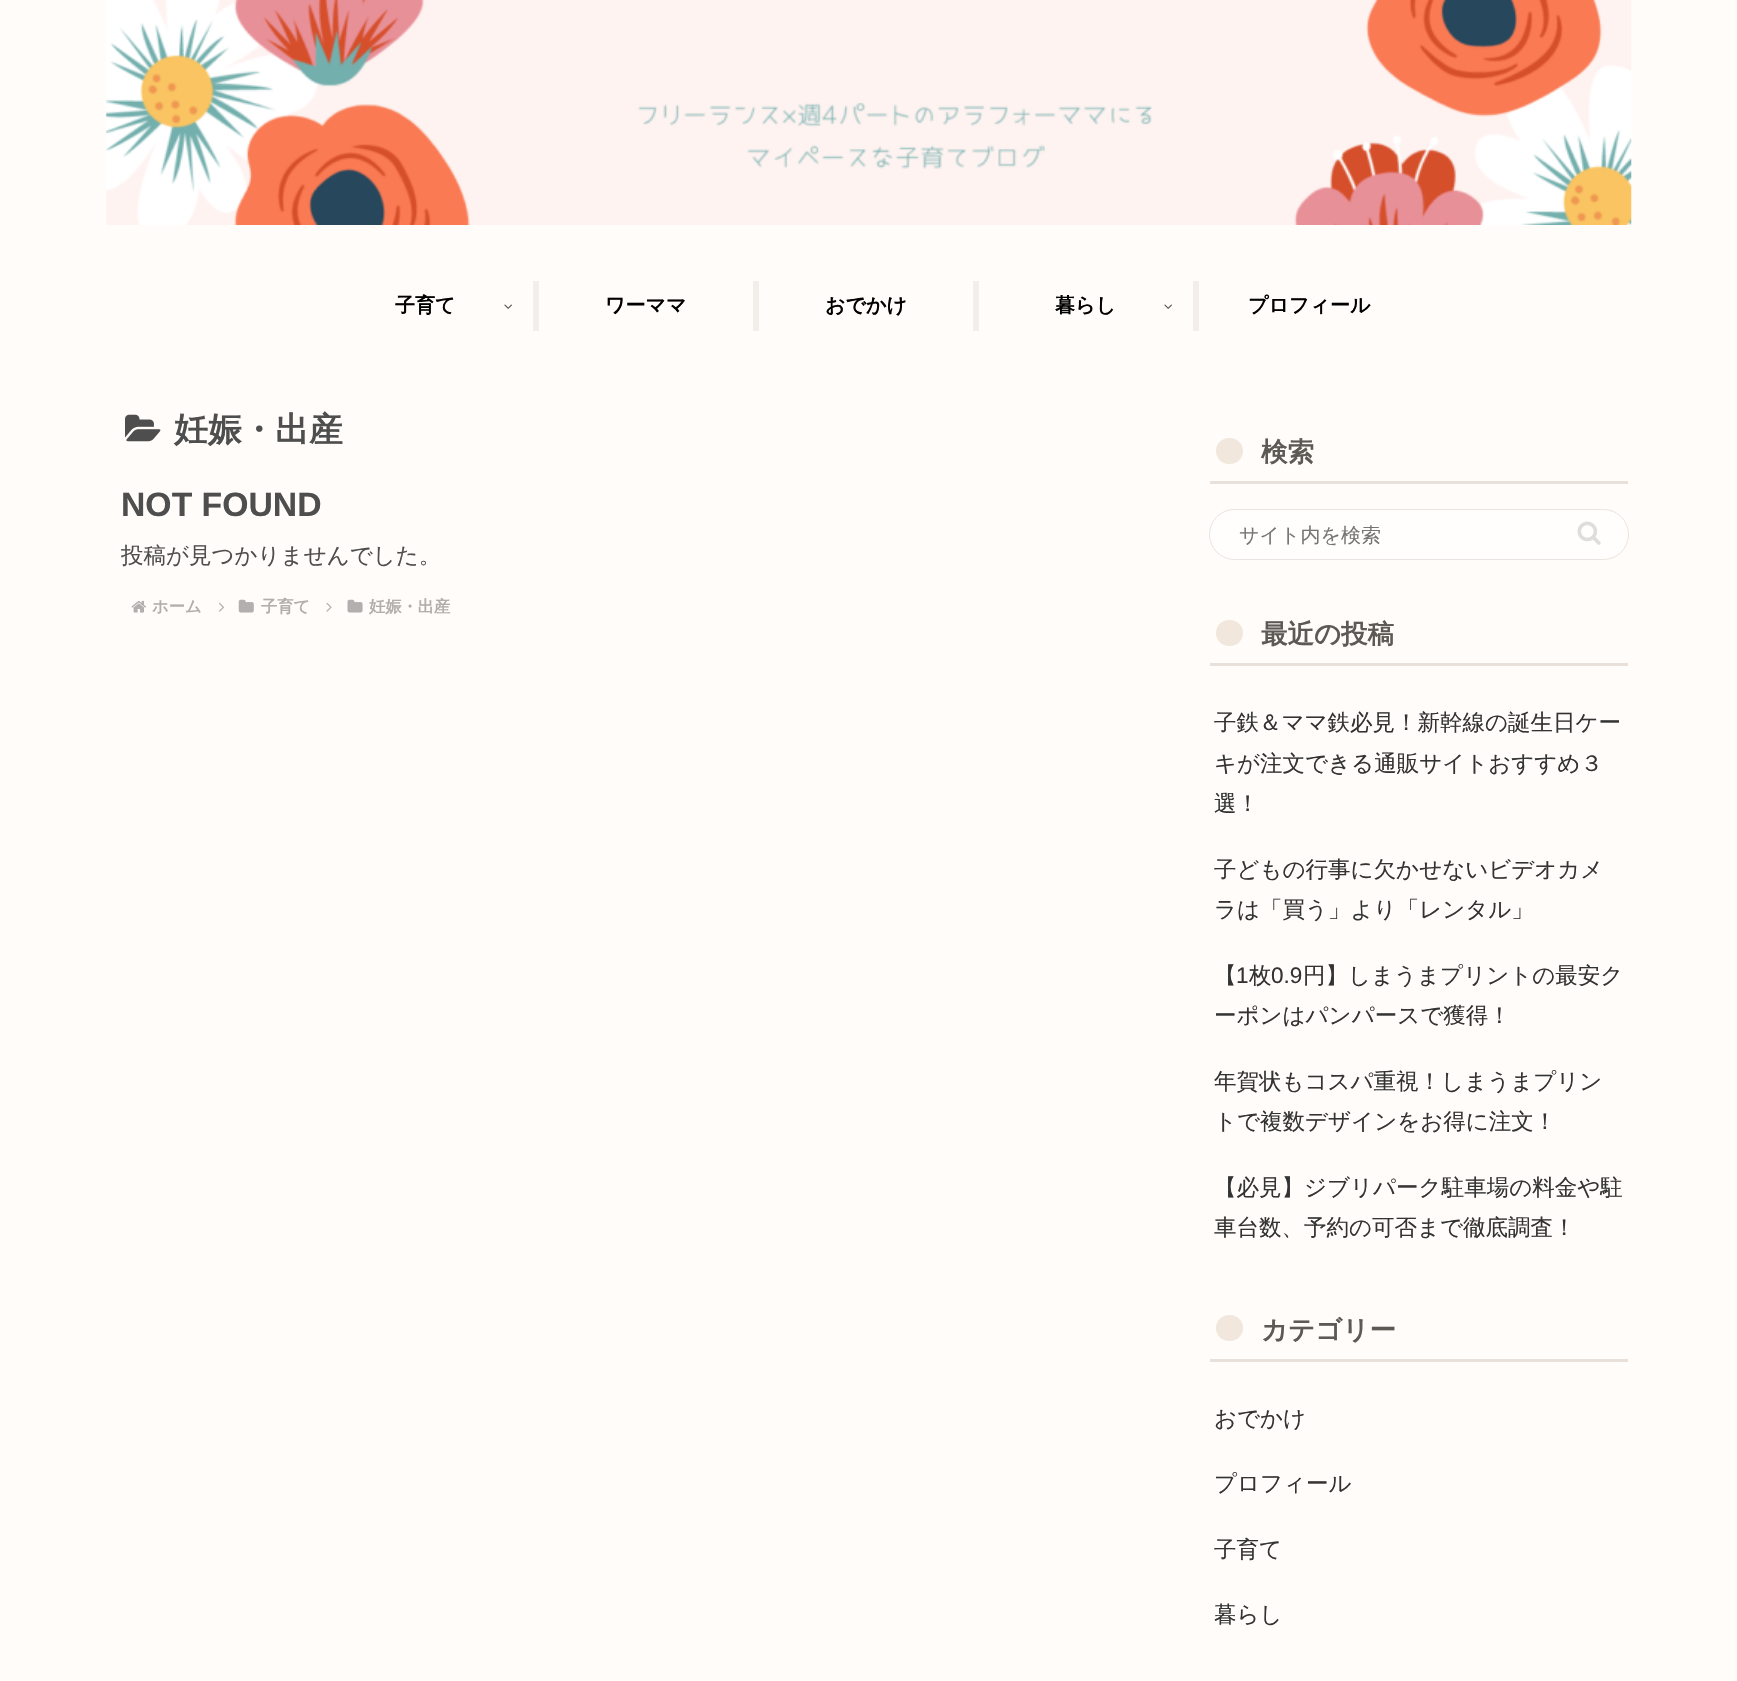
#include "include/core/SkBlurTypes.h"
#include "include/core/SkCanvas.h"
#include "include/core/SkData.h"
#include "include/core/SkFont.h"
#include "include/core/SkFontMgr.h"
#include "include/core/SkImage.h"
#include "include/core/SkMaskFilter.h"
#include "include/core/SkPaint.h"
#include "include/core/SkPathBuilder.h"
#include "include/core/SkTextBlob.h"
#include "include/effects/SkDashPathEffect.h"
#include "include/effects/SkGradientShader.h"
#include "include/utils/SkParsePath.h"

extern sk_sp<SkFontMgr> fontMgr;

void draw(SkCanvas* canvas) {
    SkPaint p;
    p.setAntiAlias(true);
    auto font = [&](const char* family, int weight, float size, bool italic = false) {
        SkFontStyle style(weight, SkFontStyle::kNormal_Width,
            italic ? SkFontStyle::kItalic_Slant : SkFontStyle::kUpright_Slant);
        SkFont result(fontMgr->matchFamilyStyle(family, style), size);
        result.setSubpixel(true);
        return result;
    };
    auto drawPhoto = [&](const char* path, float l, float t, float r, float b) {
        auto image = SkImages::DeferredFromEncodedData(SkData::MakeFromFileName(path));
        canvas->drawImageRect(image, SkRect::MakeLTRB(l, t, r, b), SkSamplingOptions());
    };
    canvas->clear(0xFFFFFCF9);
    drawPhoto("media/1.png", 106, 0, 1632, 225);
    p.setColor(0xFFF3EEE9);
    canvas->drawRect(SkRect::MakeLTRB(533, 281, 539, 331), p);
    auto font1 = font("WenQuanYi Zen Hei", 700, 20);
    p.setColor(0xFF000000);
    canvas->drawString("子育て", 395, 312, font1, p);
    drawPhoto("media/2.png", 504, 304, 512, 309);
    p.setColor(0xFFF3EEE9);
    canvas->drawRect(SkRect::MakeLTRB(753, 281, 759, 331), p);
    p.setColor(0xFF000000);
    canvas->drawString("ワーママ", 605, 312, font1, p);
    p.setColor(0xFFF3EEE9);
    canvas->drawRect(SkRect::MakeLTRB(973, 281, 979, 331), p);
    p.setColor(0xFF000000);
    canvas->drawString("おでかけ", 825, 312, font1, p);
    p.setColor(0xFFF3EEE9);
    canvas->drawRect(SkRect::MakeLTRB(1193, 281, 1199, 331), p);
    p.setColor(0xFF000000);
    canvas->drawString("暮らし", 1055, 312, font1, p);
    drawPhoto("media/2.png", 1164, 304, 1172, 309);
    canvas->drawString("プロフィール", 1248, 312, font1, p);
    drawPhoto("media/3.png", 125, 414, 161, 442);
    auto font2 = font("WenQuanYi Zen Hei", 700, 33.75f);
    p.setColor(0xFF4E4E4E);
    canvas->drawString("妊娠・出産", 174, 441, font2, p);
    auto font3 = font("Liberation Sans", 700, 33.75f);
    canvas->drawString("NOT FOUND", 121, 516, font3, p);
    auto font4 = font("WenQuanYi Zen Hei", 500, 22.5f);
    canvas->drawString("投稿が見つかりませんでした。", 121, 563, font4, p);
    drawPhoto("media/4.png", 131, 600, 146, 613);
    auto font5 = font("WenQuanYi Zen Hei", 700, 16.25f);
    p.setColor(0xFFB1AFAB);
    canvas->drawString("ホーム", 152, 612, font5, p);
    drawPhoto("media/5.png", 219, 602, 224, 612);
    drawPhoto("media/6.png", 238, 599, 254, 613);
    canvas->drawString("子育て", 261, 612, font5, p);
    drawPhoto("media/7.png", 326, 602, 332, 612);
    drawPhoto("media/8.png", 347, 599, 363, 613);
    canvas->drawString("妊娠・出産", 369, 612, font5, p);
    p.setColor(0xFFE8E0D9);
    canvas->drawRect(SkRect::MakeLTRB(1210, 481, 1628, 484), p);
    p.setColor(0xFFF1E7DD);
    canvas->drawRoundRect(SkRect::MakeLTRB(1216, 438, 1243, 464), 13, 13, p);
    auto font6 = font("WenQuanYi Zen Hei", 700, 26.5f);
    p.setColor(0xFF5D5A56);
    canvas->drawString("検索", 1261, 461, font6, p);
    p.setColor(0xFFFFFEFC);
    canvas->drawRoundRect(SkRect::MakeLTRB(1209.5f, 509.5f, 1628.5f, 559.5f), 25, 25, p);
    p.setStyle(SkPaint::kStroke_Style);
    p.setStrokeWidth(1);
    p.setColor(0xFFE8E5E1);
    canvas->drawRoundRect(SkRect::MakeLTRB(1209.5f, 509.5f, 1628.5f, 559.5f), 25, 25, p);
    auto font7 = font("WenQuanYi Zen Hei", 500, 20);
    p.setStyle(SkPaint::kFill_Style);
    p.setColor(0xFF757575);
    canvas->drawString("サイト内を検索", 1239, 542, font7, p);
    drawPhoto("media/9.png", 1577, 521, 1601, 545);
    p.setColor(0xFFE8E0D9);
    canvas->drawRect(SkRect::MakeLTRB(1210, 663, 1628, 666), p);
    p.setColor(0xFFF1E7DD);
    canvas->drawRoundRect(SkRect::MakeLTRB(1216, 620, 1243, 646), 13, 13, p);
    p.setColor(0xFF5D5A56);
    canvas->drawString("最近の投稿", 1261, 643, font6, p);
    p.setColor(0xFF333333);
    {
        const struct { const char* s; float x, y; } items[] = {
            {"子鉄＆ママ鉄必見！新幹線の誕生日ケー", 1214, 730},
            {"キが注文できる通販サイトおすすめ３", 1214, 771},
            {"選！", 1214, 811},
            {"子どもの行事に欠かせないビデオカメ", 1214, 877},
            {"ラは「買う」より「レンタル」", 1214, 917},
            {"【", 1214, 983},
        };
        for (auto [s, x, y] : items) {
            canvas->drawString(s, x, y, font4, p);
        }
    }
    auto font8 = font("Liberation Sans", 400, 22.5f);
    canvas->drawString("1", 1236, 983, font8, p);
    canvas->drawString("枚", 1249, 983, font4, p);
    canvas->drawString("0.9", 1271, 983, font8, p);
    {
        const struct { const char* s; float x, y; } items[] = {
            {"円】しまうまプリントの最安ク", 1303, 983},
            {"ーポンはパンパースで獲得！", 1214, 1023},
            {"年賀状もコスパ重視！しまうまプリン", 1214, 1089},
            {"トで複数デザインをお得に注文！", 1214, 1129},
            {"【必見】ジブリパーク駐車場の料金や駐", 1214, 1195},
            {"車台数、予約の可否まで徹底調査！", 1214, 1235},
        };
        for (auto [s, x, y] : items) {
            canvas->drawString(s, x, y, font4, p);
        }
    }
    p.setColor(0xFFE8E0D9);
    canvas->drawRect(SkRect::MakeLTRB(1210, 1359, 1628, 1362), p);
    p.setColor(0xFFF1E7DD);
    canvas->drawRoundRect(SkRect::MakeLTRB(1216, 1315, 1243, 1341), 13, 13, p);
    p.setColor(0xFF5D5A56);
    canvas->drawString("カテゴリー", 1261, 1339, font6, p);
    p.setColor(0xFF333333);
    {
        const struct { const char* s; float x, y; } items[] = {
            {"おでかけ", 1214, 1426},
            {"プロフィール", 1214, 1491},
            {"子育て", 1214, 1557},
            {"暮らし", 1214, 1622},
        };
        for (auto [s, x, y] : items) {
            canvas->drawString(s, x, y, font4, p);
        }
    }
}
